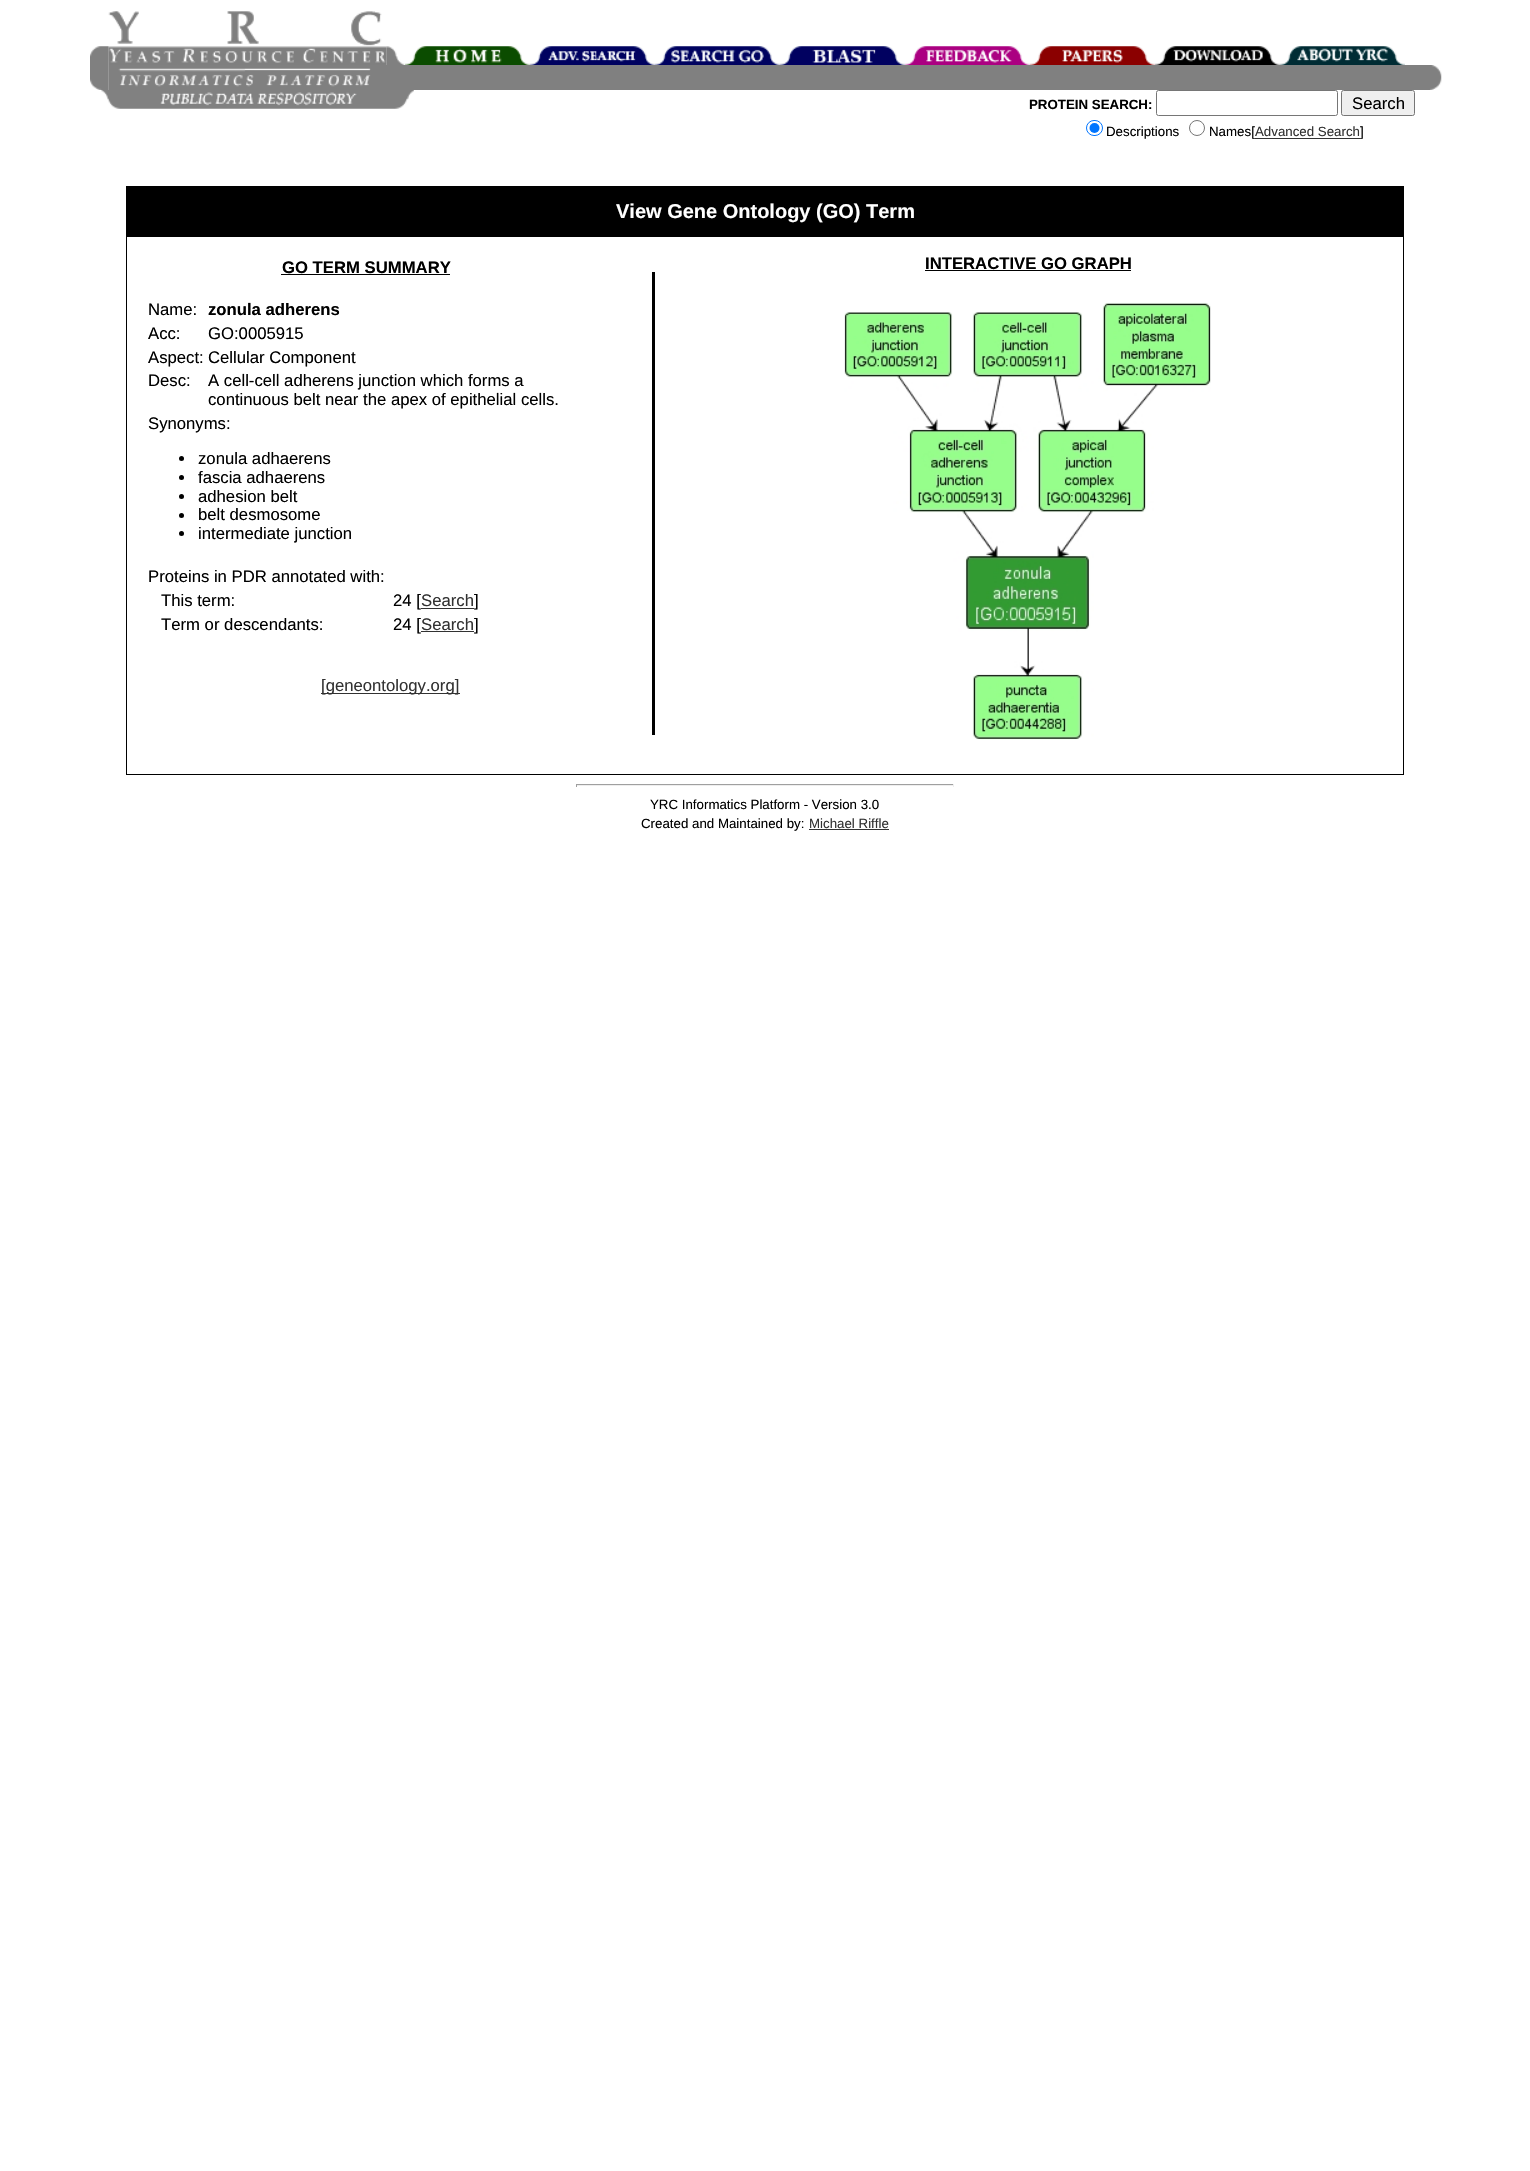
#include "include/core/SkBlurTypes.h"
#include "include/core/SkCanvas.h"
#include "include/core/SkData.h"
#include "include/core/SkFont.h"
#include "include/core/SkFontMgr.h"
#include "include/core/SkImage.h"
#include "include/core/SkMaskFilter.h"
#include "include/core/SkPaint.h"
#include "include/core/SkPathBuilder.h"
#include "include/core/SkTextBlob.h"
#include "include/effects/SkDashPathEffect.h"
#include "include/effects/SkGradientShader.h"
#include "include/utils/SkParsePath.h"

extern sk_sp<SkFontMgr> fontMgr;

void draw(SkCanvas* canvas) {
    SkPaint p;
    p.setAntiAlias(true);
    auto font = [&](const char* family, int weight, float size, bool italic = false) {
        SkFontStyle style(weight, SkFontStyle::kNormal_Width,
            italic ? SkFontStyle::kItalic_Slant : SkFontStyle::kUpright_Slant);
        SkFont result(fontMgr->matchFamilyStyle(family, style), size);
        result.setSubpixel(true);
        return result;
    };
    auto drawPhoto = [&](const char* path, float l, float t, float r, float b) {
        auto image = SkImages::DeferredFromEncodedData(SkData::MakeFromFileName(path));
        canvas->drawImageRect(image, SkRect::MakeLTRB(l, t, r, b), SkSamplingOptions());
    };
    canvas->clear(0xFFFFFFFF);
    drawPhoto("media/1.png", 90, 46, 109, 65);
    drawPhoto("media/2.png", 108, 11, 387, 65);
    drawPhoto("media/3.png", 386, 46, 405, 65);
    drawPhoto("media/4.png", 405, 46, 530, 65);
    drawPhoto("media/5.png", 530, 46, 655, 65);
    drawPhoto("media/6.png", 655, 46, 780, 65);
    drawPhoto("media/7.png", 780, 46, 905, 65);
    drawPhoto("media/8.png", 905, 46, 1030, 65);
    drawPhoto("media/9.png", 1030, 46, 1155, 65);
    drawPhoto("media/10.png", 1155, 46, 1280, 65);
    drawPhoto("media/11.png", 1280, 46, 1405, 65);
    drawPhoto("media/12.png", 90, 65, 109, 90);
    drawPhoto("media/13.png", 108, 65, 385, 90);
    p.setColor(0xFF808080);
    canvas->drawRect(SkRect::MakeLTRB(385, 65, 1423, 90), p);
    drawPhoto("media/14.png", 1423, 65, 1442, 90);
    drawPhoto("media/15.png", 101, 90, 414, 109);
    auto font1 = font("Liberation Sans", 700, 13.3f);
    p.setColor(0xFF000000);
    canvas->drawString("PROTEIN SEARCH:", 1029, 109, font1, p);
    p.setStyle(SkPaint::kStroke_Style);
    p.setStrokeWidth(1);
    p.setColor(0xFF767676);
    canvas->drawRoundRect(SkRect::MakeLTRB(1156.5f, 90.5f, 1337.5f, 115.5f), 2, 2, p);
    p.setStyle(SkPaint::kFill_Style);
    p.setColor(0xFFEFEFEF);
    canvas->drawRoundRect(SkRect::MakeLTRB(1341.5f, 90.5f, 1414.5f, 115.5f), 2, 2, p);
    p.setStyle(SkPaint::kStroke_Style);
    p.setColor(0xFF767676);
    canvas->drawRoundRect(SkRect::MakeLTRB(1341.5f, 90.5f, 1414.5f, 115.5f), 2, 2, p);
    auto font2 = font("Liberation Sans", 400, 16.7f);
    p.setStyle(SkPaint::kFill_Style);
    p.setColor(0xFF000000);
    canvas->drawString("Search", 1352, 109, font2, p);
    p.setStyle(SkPaint::kStroke_Style);
    p.setColor(0xFF0075FF);
    canvas->drawRoundRect(SkRect::MakeLTRB(1086.5f, 120.5f, 1102.5f, 135.5f), 7.5f, 7.5f, p);
    p.setStyle(SkPaint::kFill_Style);
    canvas->drawCircle(1094.5f, 128, 5, p);
    auto font3 = font("Liberation Sans", 400, 13.3f);
    p.setColor(0xFF000000);
    canvas->drawString("Descriptions", 1106, 136, font3, p);
    p.setStyle(SkPaint::kStroke_Style);
    p.setColor(0xFF767676);
    canvas->drawCircle(1197, 128, 7.5f, p);
    p.setStyle(SkPaint::kFill_Style);
    p.setColor(0xFF000000);
    canvas->drawString("Names[", 1209, 136, font3, p);
    p.setColor(0xFF323232);
    canvas->drawString("Advanced Search", 1255, 136, font3, p);
    canvas->drawRect(SkRect::MakeLTRB(1255, 138, 1360, 139), p);
    p.setColor(0xFF000000);
    canvas->drawString("]", 1360, 136, font3, p);
    canvas->drawRect(SkRect::MakeLTRB(126, 186, 1404, 236), p);
    auto font4 = font("Liberation Sans", 700, 20);
    p.setColor(0xFFFFFFFF);
    canvas->drawString("View Gene Ontology (GO) Term", 616, 218, font4, p);
    p.setStyle(SkPaint::kStroke_Style);
    p.setColor(0xFF000000);
    canvas->drawRect(SkRect::MakeLTRB(126.5f, 236.5f, 1403.5f, 774.5f), p);
    auto font5 = font("Liberation Sans", 700, 16.7f);
    p.setStyle(SkPaint::kFill_Style);
    canvas->drawString("GO TERM SUMMARY", 282, 273, font5, p);
    canvas->drawRect(SkRect::MakeLTRB(281, 274, 450, 275), p);
    canvas->drawString("Name:", 148, 315, font2, p);
    canvas->drawString("zonula adherens", 208, 315, font5, p);
    {
        const struct { const char* s; float x, y; } items[] = {
            {"Acc:", 148, 339},
            {"GO:0005915", 208, 339},
            {"Aspect:", 148, 363},
            {"Cellular Component", 208, 363},
            {"Desc:", 148, 386},
            {"A cell-cell adherens junction which forms a", 208, 386},
            {"continuous belt near the apex of epithelial cells.", 208, 405},
            {"Synonyms:", 148, 429},
        };
        for (auto [s, x, y] : items) {
            canvas->drawString(s, x, y, font2, p);
        }
    }
    canvas->drawCircle(181.5f, 458.5f, 2.5f, p);
    canvas->drawString("zonula adhaerens", 198, 464, font2, p);
    canvas->drawCircle(181.5f, 477.5f, 2.5f, p);
    canvas->drawString("fascia adhaerens", 198, 483, font2, p);
    canvas->drawCircle(181.5f, 496.5f, 2.5f, p);
    canvas->drawString("adhesion belt", 198, 502, font2, p);
    canvas->drawCircle(181.5f, 515.5f, 2.5f, p);
    canvas->drawString("belt desmosome", 198, 520, font2, p);
    canvas->drawCircle(181.5f, 533.5f, 2.5f, p);
    {
        const struct { const char* s; float x, y; } items[] = {
            {"intermediate junction", 198, 539},
            {"Proteins in PDR annotated with:", 148, 582},
            {"This term:", 161, 606},
            {"24 [", 393, 606},
        };
        for (auto [s, x, y] : items) {
            canvas->drawString(s, x, y, font2, p);
        }
    }
    p.setColor(0xFF323232);
    canvas->drawString("Search", 421, 606, font2, p);
    canvas->drawRect(SkRect::MakeLTRB(421, 608, 474, 609), p);
    p.setColor(0xFF000000);
    {
        const struct { const char* s; float x, y; } items[] = {
            {"]", 474, 606},
            {"Term or descendants:", 161, 630},
            {"24 [", 393, 630},
        };
        for (auto [s, x, y] : items) {
            canvas->drawString(s, x, y, font2, p);
        }
    }
    p.setColor(0xFF323232);
    canvas->drawString("Search", 421, 630, font2, p);
    canvas->drawRect(SkRect::MakeLTRB(421, 631, 474, 632), p);
    p.setColor(0xFF000000);
    canvas->drawString("]", 474, 630, font2, p);
    p.setColor(0xFF323232);
    canvas->drawRect(SkRect::MakeLTRB(321, 693, 460, 694), p);
    canvas->drawString("[geneontology.org]", 321, 691, font2, p);
    p.setColor(0xFF000000);
    canvas->drawRect(SkRect::MakeLTRB(652, 272, 655, 735), p);
    canvas->drawString("INTERACTIVE GO GRAPH", 925, 269, font5, p);
    canvas->drawRect(SkRect::MakeLTRB(925, 270, 1131, 271), p);
    drawPhoto("media/16.png", 844, 302, 1211, 740);
    {
        const struct { float l, t, r, b; SkColor color; } items[] = {
            {576, 784, 954, 785, 0xFF9F9F9F},
            {953, 784, 954, 787, 0xFFEEEEEE},
            {576, 785, 954, 786, 0xFFEEEEEE},
            {576, 784, 577, 787, 0xFF9F9F9F},
        };
        for (auto [l, t, r, b, color] : items) {
            p.setColor(color);
            canvas->drawRect(SkRect::MakeLTRB(l, t, r, b), p);
        }
    }
    p.setColor(0xFF000000);
    canvas->drawString("YRC Informatics Platform - Version 3.0", 650, 809, font3, p);
    canvas->drawString("Created and Maintained by:", 641, 828, font3, p);
    p.setColor(0xFF323232);
    canvas->drawString("Michael Riffle", 809, 828, font3, p);
    canvas->drawRect(SkRect::MakeLTRB(809, 829, 889, 830), p);
}
